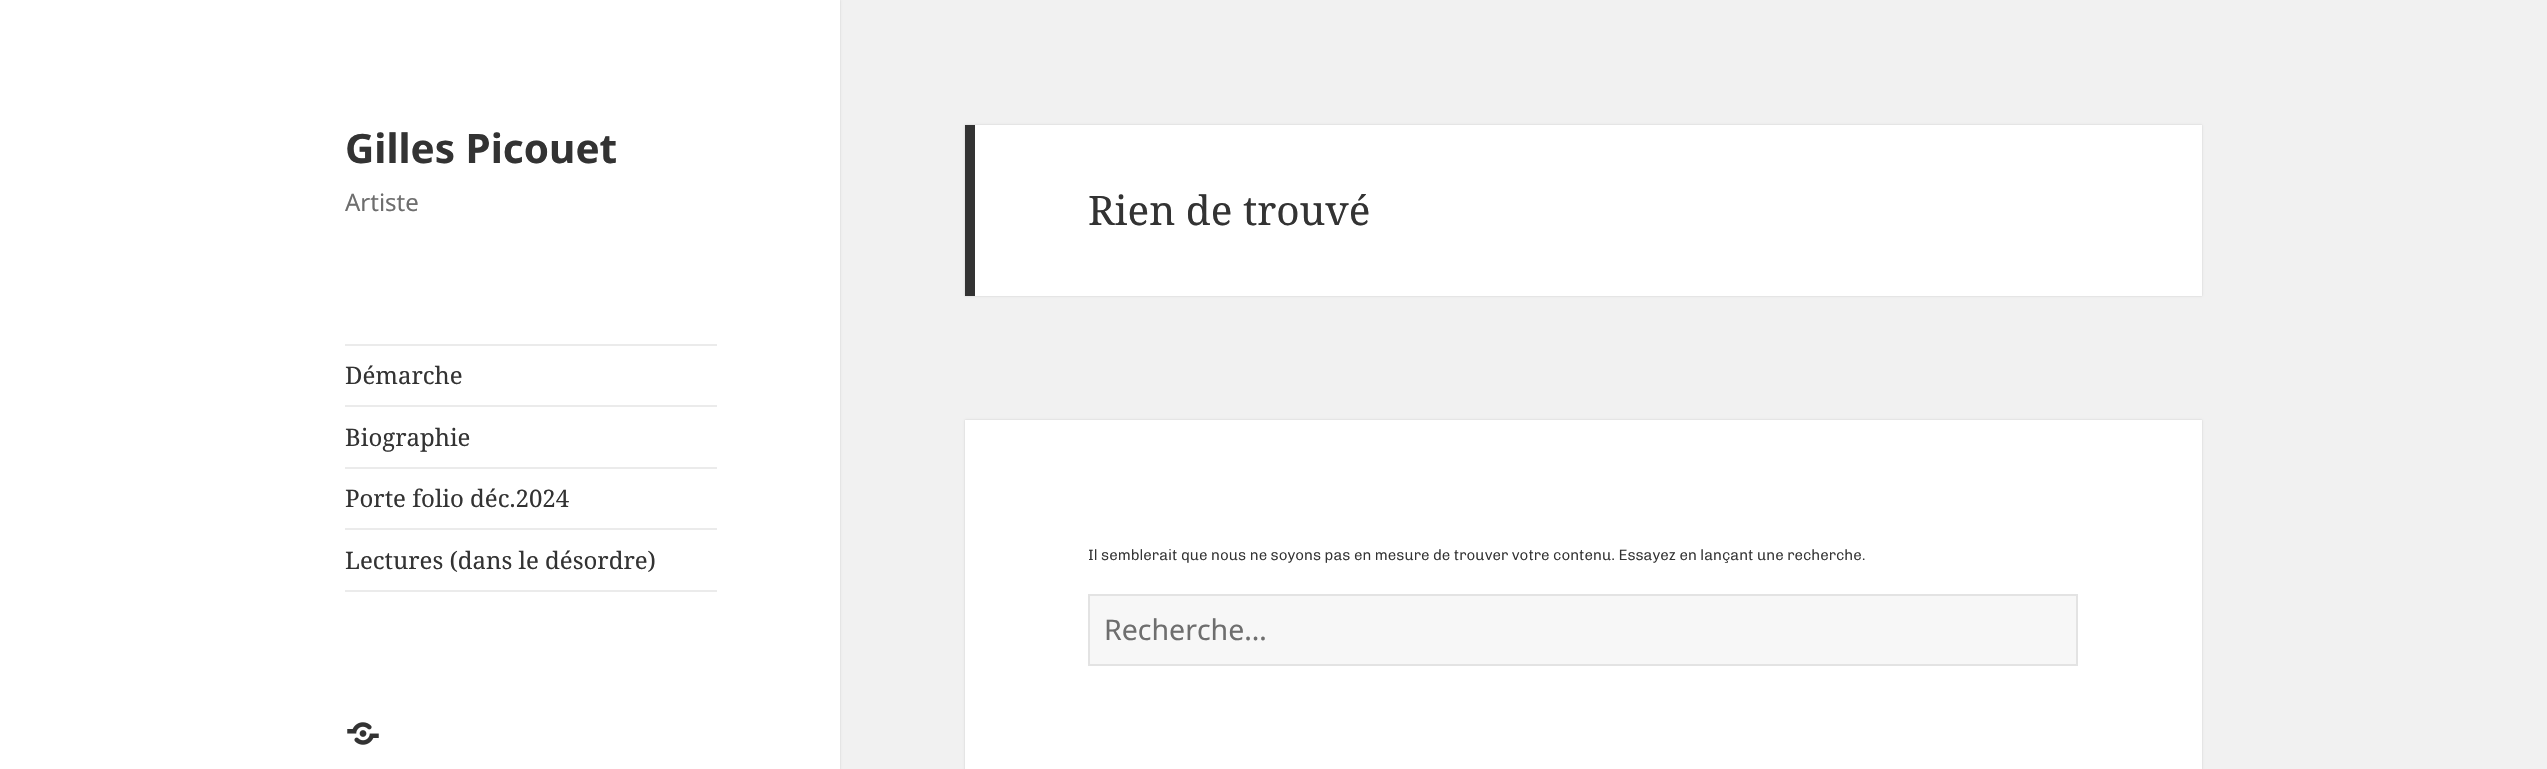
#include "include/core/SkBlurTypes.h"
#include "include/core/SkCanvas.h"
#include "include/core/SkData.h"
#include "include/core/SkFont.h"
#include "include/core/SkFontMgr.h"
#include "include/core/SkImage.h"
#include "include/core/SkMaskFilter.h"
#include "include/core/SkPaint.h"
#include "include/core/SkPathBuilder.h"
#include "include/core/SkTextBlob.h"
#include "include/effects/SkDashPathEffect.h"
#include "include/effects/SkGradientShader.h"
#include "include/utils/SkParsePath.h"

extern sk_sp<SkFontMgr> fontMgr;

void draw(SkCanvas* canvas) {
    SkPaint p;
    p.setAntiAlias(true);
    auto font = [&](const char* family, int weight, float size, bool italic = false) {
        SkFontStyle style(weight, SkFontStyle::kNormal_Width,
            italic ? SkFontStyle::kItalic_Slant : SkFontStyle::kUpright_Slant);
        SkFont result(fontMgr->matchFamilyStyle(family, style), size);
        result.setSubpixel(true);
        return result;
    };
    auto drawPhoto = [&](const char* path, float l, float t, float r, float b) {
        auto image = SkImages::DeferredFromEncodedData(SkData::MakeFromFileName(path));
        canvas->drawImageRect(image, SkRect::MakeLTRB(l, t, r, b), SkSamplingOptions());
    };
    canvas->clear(0xFFF1F1F1);
    p.setColor(0x26000000);
    p.setMaskFilter(SkMaskFilter::MakeBlur(kNormal_SkBlurStyle, 1));
    canvas->drawRect(SkRect::MakeLTRB(0, 0, 840, 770), p);
    p.setMaskFilter(nullptr);
    p.setColor(0xFFFFFFFF);
    canvas->drawRect(SkRect::MakeLTRB(0, 0, 840, 769), p);
    auto font1 = font("Noto Sans", 700, 40.5f);
    p.setColor(0xFF333333);
    canvas->drawString("Gilles Picouet", 345, 163, font1, p);
    auto font2 = font("Noto Sans", 400, 24);
    p.setColor(0xFF6E6E6E);
    canvas->drawString("Artiste", 345, 211, font2, p);
    p.setColor(0xFFEBEBEB);
    canvas->drawRect(SkRect::MakeLTRB(345, 344, 717, 346), p);
    canvas->drawRect(SkRect::MakeLTRB(345, 590, 717, 592), p);
    auto font3 = font("Noto Serif", 400, 24);
    p.setColor(0xFF333333);
    canvas->drawString("Démarche", 345, 384, font3, p);
    p.setColor(0xFFEBEBEB);
    canvas->drawRect(SkRect::MakeLTRB(345, 405, 717, 407), p);
    p.setColor(0xFF333333);
    canvas->drawString("Biographie", 345, 446, font3, p);
    p.setColor(0xFFEBEBEB);
    canvas->drawRect(SkRect::MakeLTRB(345, 467, 717, 469), p);
    p.setColor(0xFF333333);
    canvas->drawString("Porte folio déc.2024", 345, 507, font3, p);
    p.setColor(0xFFEBEBEB);
    canvas->drawRect(SkRect::MakeLTRB(345, 528, 717, 530), p);
    p.setColor(0xFF333333);
    canvas->drawString("Lectures (dans le désordre)", 345, 569, font3, p);
    drawPhoto("media/1.png", 347, 722, 379, 745);
    p.setColor(0x26000000);
    p.setMaskFilter(SkMaskFilter::MakeBlur(kNormal_SkBlurStyle, 1));
    canvas->drawRect(SkRect::MakeLTRB(965, 125, 2202, 296), p);
    p.setMaskFilter(nullptr);
    p.setColor(0xFFFFFFFF);
    canvas->drawRect(SkRect::MakeLTRB(975, 125, 2202, 296), p);
    p.setColor(0xFF333333);
    canvas->drawRect(SkRect::MakeLTRB(965, 125, 975, 296), p);
    auto font4 = font("Noto Serif", 400, 40.5f);
    canvas->drawString("Rien de trouvé", 1088, 225, font4, p);
    p.setColor(0x26000000);
    p.setMaskFilter(SkMaskFilter::MakeBlur(kNormal_SkBlurStyle, 1));
    canvas->drawRect(SkRect::MakeLTRB(965, 420, 2202, 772), p);
    p.setMaskFilter(nullptr);
    p.setColor(0xFFFFFFFF);
    canvas->drawRect(SkRect::MakeLTRB(965, 420, 2202, 769), p);
    auto font5 = font("Chivo", 300, 15);
    p.setColor(0xFF333333);
    canvas->drawString("Il semblerait que nous ne soyons pas en mesure de trouver votre contenu. Essayez en lançant une recherche.", 1088, 560, font5, p);
    p.setColor(0xFFF7F7F7);
    canvas->drawRect(SkRect::MakeLTRB(1089, 595, 2077, 665), p);
    p.setStyle(SkPaint::kStroke_Style);
    p.setStrokeWidth(2);
    p.setColor(0xFFE3E3E3);
    canvas->drawRect(SkRect::MakeLTRB(1089, 595, 2077, 665), p);
    auto font6 = font("Noto Sans", 400, 28.5f);
    p.setStyle(SkPaint::kFill_Style);
    p.setColor(0xFF6E6E6E);
    canvas->drawString("Recherche…", 1104, 640, font6, p);
}
